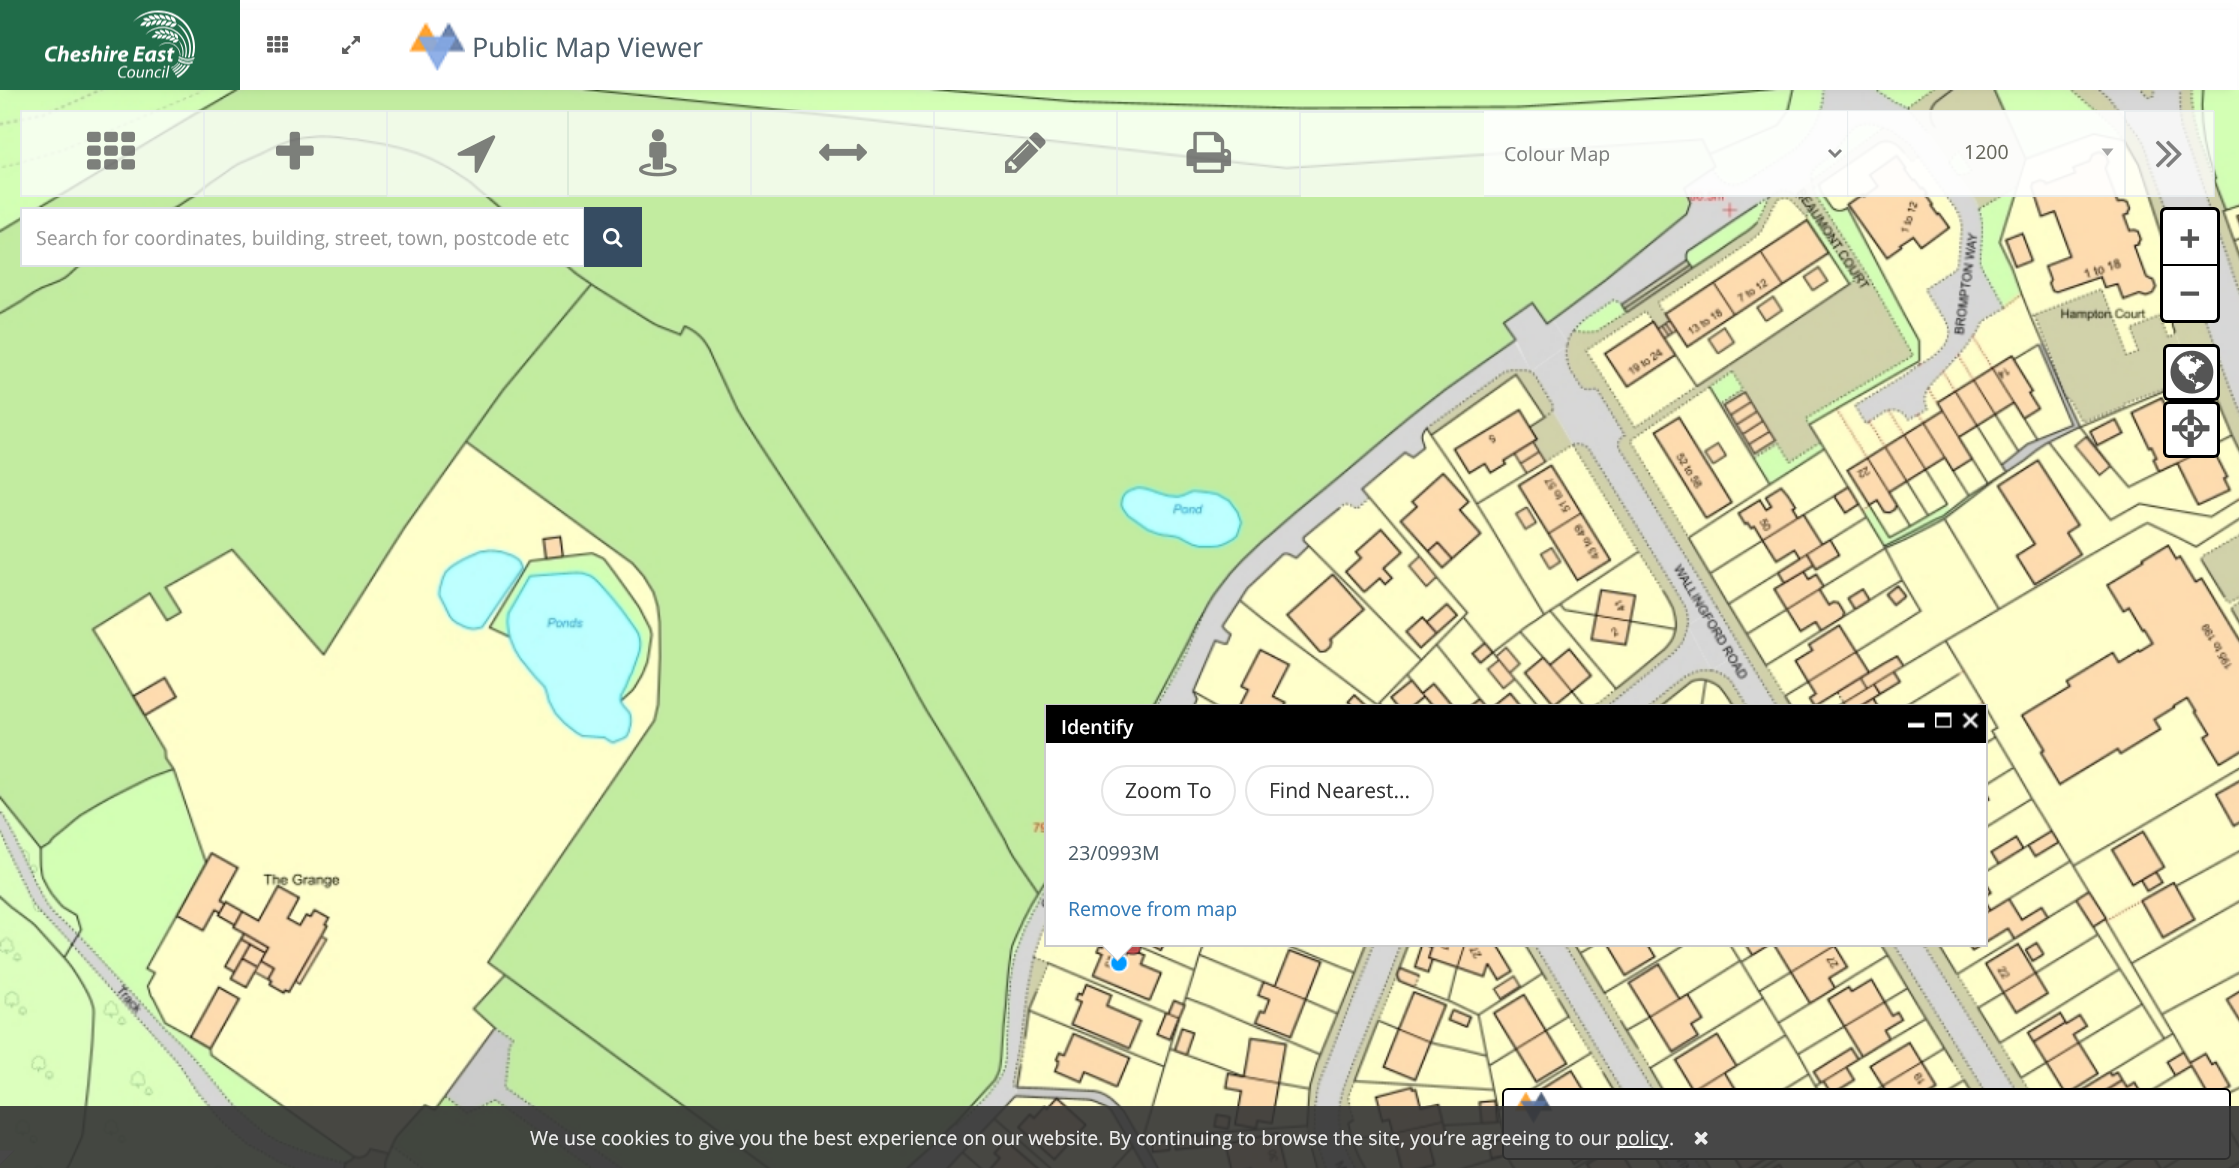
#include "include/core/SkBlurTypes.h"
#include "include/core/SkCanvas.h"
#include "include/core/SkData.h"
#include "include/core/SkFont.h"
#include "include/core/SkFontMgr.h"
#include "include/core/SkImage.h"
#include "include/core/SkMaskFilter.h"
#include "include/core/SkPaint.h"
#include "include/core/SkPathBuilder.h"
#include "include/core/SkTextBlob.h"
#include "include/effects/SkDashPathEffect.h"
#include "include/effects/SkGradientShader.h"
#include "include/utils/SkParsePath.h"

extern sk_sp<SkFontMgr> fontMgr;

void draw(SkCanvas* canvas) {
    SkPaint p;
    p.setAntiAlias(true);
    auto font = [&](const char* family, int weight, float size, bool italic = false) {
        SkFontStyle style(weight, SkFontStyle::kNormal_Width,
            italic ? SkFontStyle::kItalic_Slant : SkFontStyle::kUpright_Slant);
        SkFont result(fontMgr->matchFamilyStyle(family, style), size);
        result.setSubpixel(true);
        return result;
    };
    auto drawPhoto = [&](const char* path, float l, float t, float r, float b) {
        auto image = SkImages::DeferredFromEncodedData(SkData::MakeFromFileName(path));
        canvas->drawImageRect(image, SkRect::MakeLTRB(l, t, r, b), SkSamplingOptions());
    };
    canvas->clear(0xFFFFFFFF);
    drawPhoto("media/14.png", 0, 90, 2239, 1168);
    p.setColor(0x1A000000);
    p.setMaskFilter(SkMaskFilter::MakeBlur(kNormal_SkBlurStyle, 4));
    canvas->drawRect(SkRect::MakeLTRB(8, 15, 2232, 90), p);
    p.setMaskFilter(nullptr);
    p.setColor(0xFFFFFFFF);
    canvas->drawRect(SkRect::MakeLTRB(240, 10, 2237, 90), p);
    p.setColor(0xFF206C49);
    canvas->drawRect(SkRect::MakeLTRB(0, 0, 240, 90), p);
    drawPhoto("media/1.png", 45, 10, 195, 79);
    drawPhoto("media/2.png", 267, 36, 288, 53);
    drawPhoto("media/3.png", 342, 36, 360, 54);
    drawPhoto("media/4.png", 409, 22, 465, 71);
    auto font1 = font("Open Sans", 400, 27);
    p.setColor(0xFF4E5E6A);
    canvas->drawString("Public Map Viewer", 472, 57, font1, p);
    {
        const struct { float l, t, r, b; SkColor color; } items[] = {
            {20, 110, 2214, 197, 0xBFFFFFFF},
            {20, 110, 2214, 112, 0xBFE4EAEC},
            {20, 110, 22, 197, 0xBFE4EAEC},
            {203, 111, 205, 197, 0xBFE4EAEC},
            {21, 195, 204, 197, 0xBFE4EAEC},
        };
        for (auto [l, t, r, b, color] : items) {
            p.setColor(color);
            canvas->drawRect(SkRect::MakeLTRB(l, t, r, b), p);
        }
    }
    drawPhoto("media/5.png", 87, 131, 135, 170);
    canvas->drawRect(SkRect::MakeLTRB(386, 111, 388, 197), p);
    p.setColor(0xFFDBEBD9);
    canvas->drawRect(SkRect::MakeLTRB(204, 195, 387, 197), p);
    drawPhoto("media/6.png", 276, 131, 314, 170);
    p.setColor(0xFFDCEBD9);
    canvas->drawRect(SkRect::MakeLTRB(567, 111, 569, 197), p);
    p.setColor(0xBFE4EAEC);
    canvas->drawRect(SkRect::MakeLTRB(387, 195, 569, 197), p);
    drawPhoto("media/7.png", 457, 135, 496, 173);
    canvas->drawRect(SkRect::MakeLTRB(750, 111, 752, 197), p);
    p.setColor(0xFFDCEBD9);
    canvas->drawRect(SkRect::MakeLTRB(569, 195, 752, 197), p);
    drawPhoto("media/8.png", 639, 129, 677, 177);
    p.setColor(0xBFE4EAEC);
    canvas->drawRect(SkRect::MakeLTRB(933, 111, 935, 197), p);
    p.setColor(0xFFDCEBD9);
    canvas->drawRect(SkRect::MakeLTRB(752, 195, 935, 197), p);
    drawPhoto("media/9.png", 819, 143, 867, 161);
    p.setColor(0xBFE4EAEC);
    canvas->drawRect(SkRect::MakeLTRB(1116, 111, 1118, 197), p);
    p.setColor(0xFFDCEBD9);
    canvas->drawRect(SkRect::MakeLTRB(935, 195, 1118, 197), p);
    drawPhoto("media/10.png", 1005, 132, 1046, 173);
    p.setColor(0xBFE4EAEC);
    canvas->drawRect(SkRect::MakeLTRB(1299, 111, 1301, 197), p);
    p.setColor(0xFFDCEBD9);
    canvas->drawRect(SkRect::MakeLTRB(1118, 195, 1301, 197), p);
    drawPhoto("media/11.png", 1186, 131, 1232, 173);
    {
        const struct { float l, t, r, b; SkColor color; } items[] = {
            {1482, 111, 1484, 113, 0xFFE0EFDE},
            {1301, 111, 1484, 113, 0xBFE4EAEC},
            {1847, 111, 1849, 197, 0xBFE4EAEC},
            {1484, 195, 1848, 197, 0xBFE4EAEC},
            {1484, 111, 1847, 195, 0xBFFFFFFF},
        };
        for (auto [l, t, r, b, color] : items) {
            p.setColor(color);
            canvas->drawRect(SkRect::MakeLTRB(l, t, r, b), p);
        }
    }
    p.setStyle(SkPaint::kStroke_Style);
    p.setStrokeWidth(3);
    p.setColor(0xBF555555);
    canvas->drawPath(SkPathBuilder().moveTo(1829, 150).lineTo(1835, 156).lineTo(1841, 150).detach(), p);
    auto font2 = font("Open Sans", 400, 19.5f);
    p.setStyle(SkPaint::kFill_Style);
    p.setColor(0xFF7E7F7E);
    canvas->drawString("Colour Map", 1504, 161, font2, p);
    {
        const struct { float l, t, r, b; SkColor color; } items[] = {
            {2124, 111, 2126, 197, 0xBFE4EAEC},
            {1848, 195, 2126, 197, 0xBFE4EAEC},
            {1848, 111, 2124, 195, 0xBFFFFFFF},
        };
        for (auto [l, t, r, b, color] : items) {
            p.setColor(color);
            canvas->drawRect(SkRect::MakeLTRB(l, t, r, b), p);
        }
    }
    p.setColor(0xFF67675D);
    canvas->drawString("1200", 1964, 159, font2, p);
    p.setColor(0xBF888888);
    canvas->drawPath(SkPathBuilder().moveTo(2101.5f, 148.5f).lineTo(2113.5f, 148.5f).lineTo(2107.5f, 156).close().detach(), p);
    p.setColor(0xBFE4EAEC);
    canvas->drawRect(SkRect::MakeLTRB(2213, 111, 2215, 197), p);
    canvas->drawRect(SkRect::MakeLTRB(2126, 195, 2214, 197), p);
    drawPhoto("media/12.png", 2155, 140, 2182, 168);
    p.setColor(0xFFFFFFFF);
    canvas->drawRect(SkRect::MakeLTRB(21, 208, 584, 266), p);
    p.setStyle(SkPaint::kStroke_Style);
    p.setStrokeWidth(2);
    p.setColor(0xFFDCE1E4);
    canvas->drawRect(SkRect::MakeLTRB(21, 208, 584, 266), p);
    p.setStyle(SkPaint::kFill_Style);
    p.setColor(0xFF999999);
    canvas->drawString("Search for coordinates, building, street, town, postcode etc", 36, 245, font2, p);
    p.setColor(0xFF364C62);
    canvas->drawRect(SkRect::MakeLTRB(584, 207, 642, 267), p);
    drawPhoto("media/13.png", 603, 228, 623, 248);
    p.setColor(0xFF000000);
    canvas->drawRoundRect(SkRect::MakeLTRB(2160, 207, 2220, 323), 6, 6, p);
    p.setColor(0xFFFFFFFF);
    canvas->drawPath(SkPathBuilder().moveTo(2166, 210).lineTo(2214, 210).cubicTo(2215.5f, 210, 2217, 211.5f, 2217, 213).lineTo(2217, 264).lineTo(2163, 264).lineTo(2163, 213).cubicTo(2163, 211.5f, 2164.5f, 210, 2166, 210).close().detach(), p);
    auto font3 = font("Open Sans", 700, 38);
    p.setColor(0xFF555555);
    canvas->drawString("+", 2179, 252, font3, p);
    p.setColor(0xFFFFFFFF);
    canvas->drawPath(SkPathBuilder().moveTo(2163, 266).lineTo(2217, 266).lineTo(2217, 317).cubicTo(2217, 318.5f, 2215.5f, 320, 2214, 320).lineTo(2166, 320).cubicTo(2164.5f, 320, 2163, 318.5f, 2163, 317).close().detach(), p);
    p.setColor(0xFF555555);
    canvas->drawString("−", 2179, 307, font3, p);
    p.setColor(0xFFFFFFFF);
    canvas->drawRect(SkRect::MakeLTRB(1046, 743, 1986, 945), p);
    p.setStyle(SkPaint::kStroke_Style);
    p.setColor(0xFFCCCCCC);
    canvas->drawRect(SkRect::MakeLTRB(1045, 705, 1987, 946), p);
    p.setStyle(SkPaint::kFill_Style);
    p.setColor(0xFF000000);
    canvas->drawRect(SkRect::MakeLTRB(1046, 705, 1986, 743), p);
    auto font4 = font("Open Sans", 600, 19.5f);
    p.setColor(0xFFFFFFFF);
    canvas->drawString("Identify", 1061, 734, font4, p);
    drawPhoto("media/15.png", 1908, 722, 1925, 728);
    drawPhoto("media/16.png", 1935, 712, 1952, 729);
    drawPhoto("media/17.png", 1962, 711, 1979, 730);
    p.setStyle(SkPaint::kStroke_Style);
    p.setColor(0xFFE5E5E5);
    canvas->drawRoundRect(SkRect::MakeLTRB(1102, 766, 1235, 815), 24.5f, 24.5f, p);
    auto font5 = font("Open Sans", 400, 21);
    p.setStyle(SkPaint::kFill_Style);
    p.setColor(0xFF333333);
    canvas->drawString("Zoom To", 1125, 798, font5, p);
    p.setStyle(SkPaint::kStroke_Style);
    p.setColor(0xFFE5E5E5);
    canvas->drawRoundRect(SkRect::MakeLTRB(1246, 766, 1433, 815), 24.5f, 24.5f, p);
    p.setStyle(SkPaint::kFill_Style);
    p.setColor(0xFF333333);
    canvas->drawString("Find Nearest...", 1269, 798, font5, p);
    p.setColor(0xFF4E5E6A);
    canvas->drawString("23/0993M", 1068, 860, font2, p);
    p.setColor(0xFF337AB7);
    canvas->drawString("Remove from map", 1068, 916, font2, p);
    p.setColor(0xFFCCCCCC);
    canvas->drawPath(SkPathBuilder().moveTo(1101, 945).lineTo(1134, 945).lineTo(1117.5f, 961.5f).close().detach(), p);
    p.setColor(0xFFFFFFFF);
    canvas->drawPath(SkPathBuilder().moveTo(1102.5f, 945).lineTo(1132.5f, 945).lineTo(1117.5f, 960).close().detach(), p);
    canvas->drawRoundRect(SkRect::MakeLTRB(1503, 1089, 2230, 1159), 5, 5, p);
    p.setStyle(SkPaint::kStroke_Style);
    p.setColor(0xFF000000);
    canvas->drawRoundRect(SkRect::MakeLTRB(1503, 1089, 2230, 1159), 5, 5, p);
    drawPhoto("media/18.png", 1515, 1092, 1553, 1124);
    p.setStyle(SkPaint::kFill_Style);
    canvas->drawRoundRect(SkRect::MakeLTRB(2163, 344, 2220, 401), 6, 6, p);
    p.setColor(0xFFFFFFFF);
    canvas->drawRoundRect(SkRect::MakeLTRB(2166, 347, 2217, 398), 3, 3, p);
    drawPhoto("media/19.png", 2170, 350, 2214, 394);
    p.setColor(0xFF000000);
    canvas->drawRoundRect(SkRect::MakeLTRB(2163, 401, 2220, 458), 6, 6, p);
    p.setColor(0xFFFFFFFF);
    canvas->drawRoundRect(SkRect::MakeLTRB(2166, 404, 2217, 455), 3, 3, p);
    drawPhoto("media/20.png", 2172, 409, 2210, 447);
    p.setColor(0xFFCCCCCC);
    canvas->drawPath(SkPathBuilder().moveTo(-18, 1150.5f).lineTo(15, 1150.5f).lineTo(-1.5f, 1167).close().detach(), p);
    p.setColor(0xFFFFFFFF);
    canvas->drawPath(SkPathBuilder().moveTo(-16.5f, 1150.5f).lineTo(13.5f, 1150.5f).lineTo(-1.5f, 1165.5f).close().detach(), p);
    p.setColor(0xE6333333);
    canvas->drawRect(SkRect::MakeLTRB(0, 1106, 2239, 1168), p);
    p.setColor(0xFFECECEC);
    canvas->drawString("We use cookies to give you the best experience on our website. By continuing to browse the site, you’re agreeing to our", 530, 1145, font2, p);
    p.setColor(0xFFFFFFFF);
    canvas->drawRect(SkRect::MakeLTRB(1616, 1146, 1668, 1148), p);
    p.setColor(0xFFECECEC);
    canvas->drawString("policy", 1616, 1145, font2, p);
    p.setColor(0xFFFFFFFF);
    canvas->drawString(".", 1669, 1145, font2, p);
    drawPhoto("media/21.png", 1694, 1131, 1708, 1145);
}
